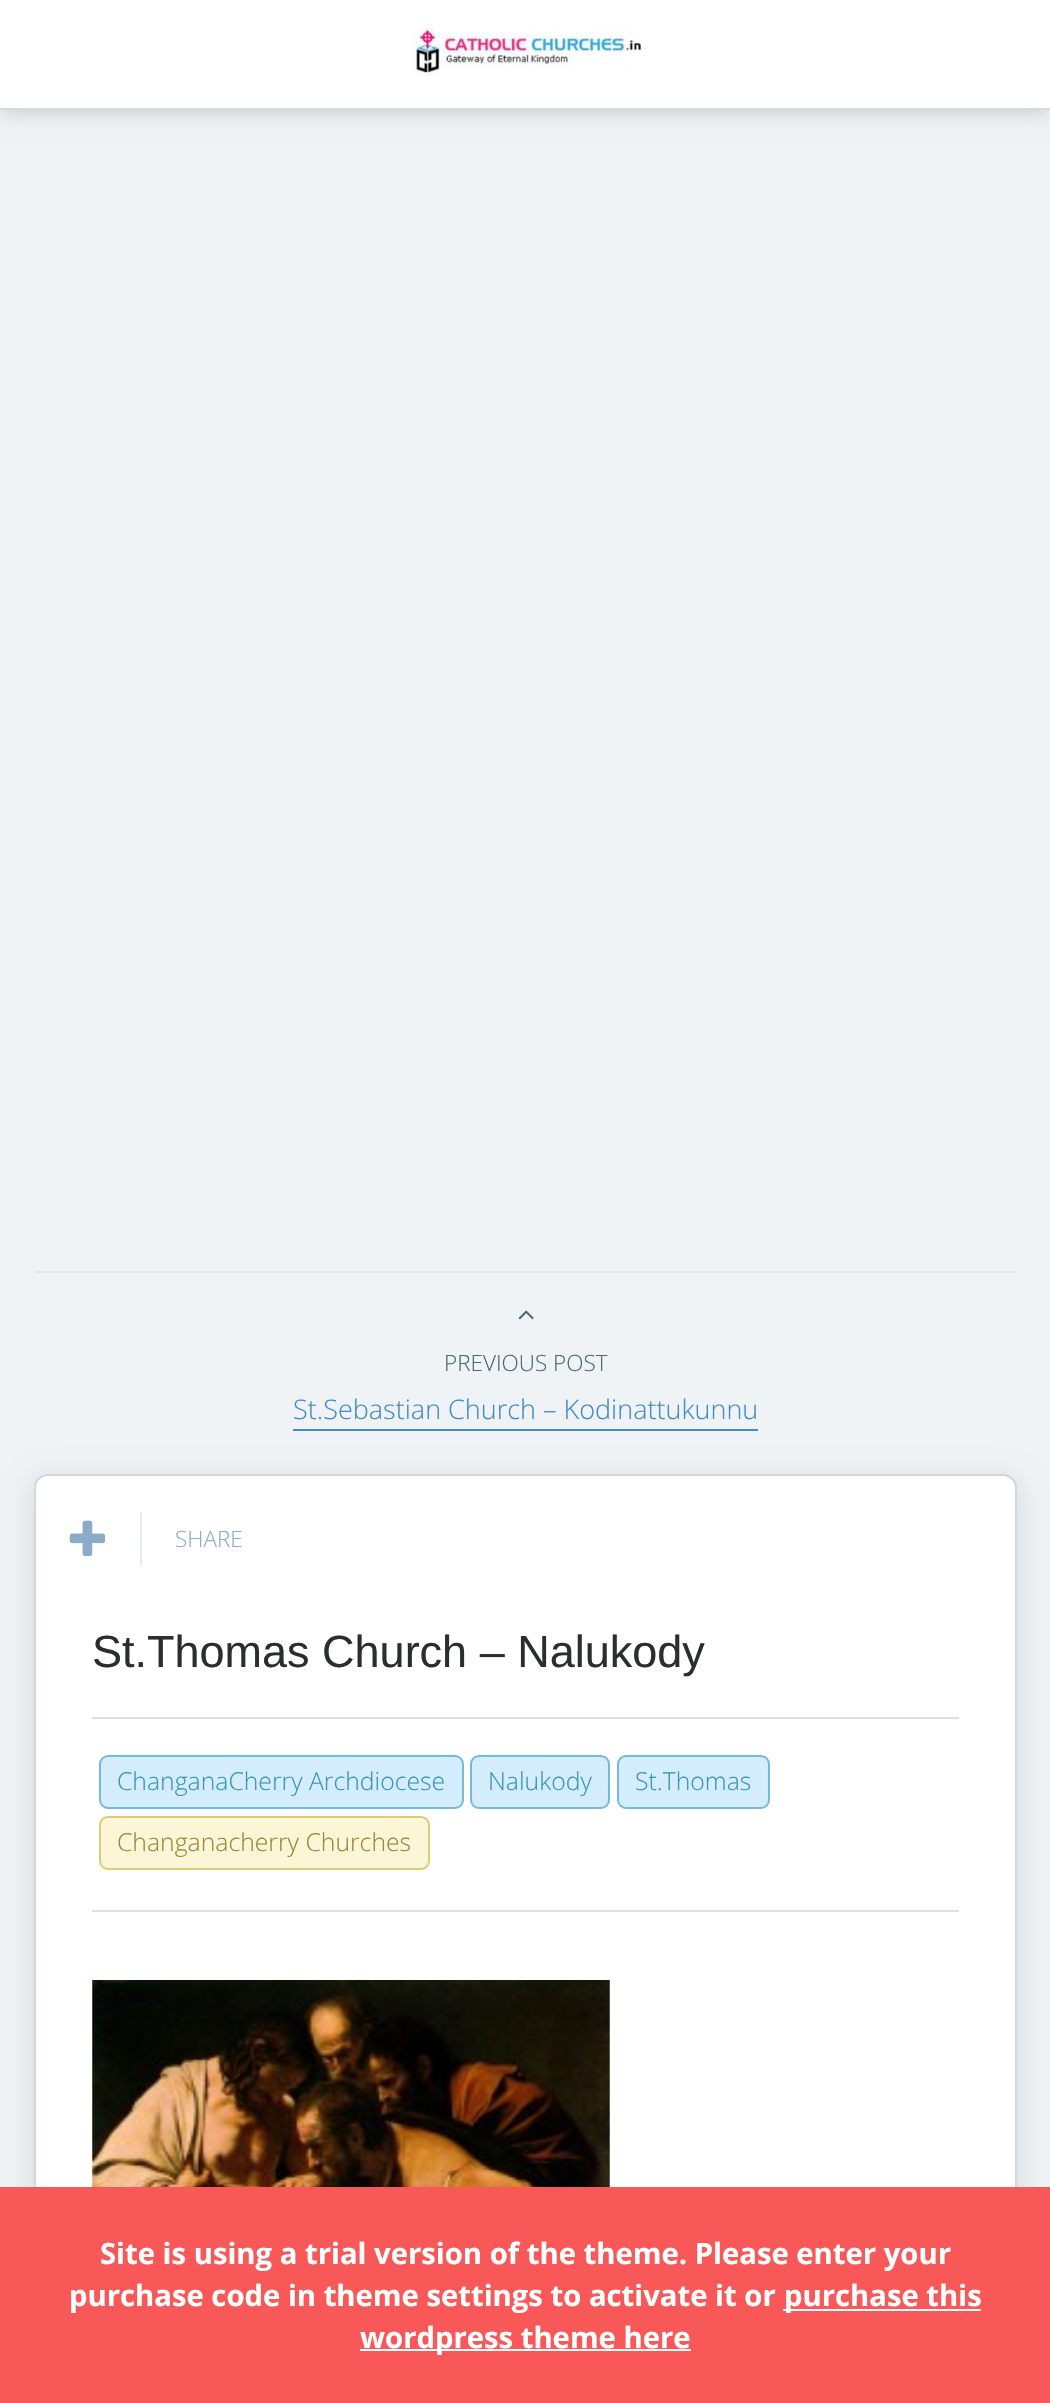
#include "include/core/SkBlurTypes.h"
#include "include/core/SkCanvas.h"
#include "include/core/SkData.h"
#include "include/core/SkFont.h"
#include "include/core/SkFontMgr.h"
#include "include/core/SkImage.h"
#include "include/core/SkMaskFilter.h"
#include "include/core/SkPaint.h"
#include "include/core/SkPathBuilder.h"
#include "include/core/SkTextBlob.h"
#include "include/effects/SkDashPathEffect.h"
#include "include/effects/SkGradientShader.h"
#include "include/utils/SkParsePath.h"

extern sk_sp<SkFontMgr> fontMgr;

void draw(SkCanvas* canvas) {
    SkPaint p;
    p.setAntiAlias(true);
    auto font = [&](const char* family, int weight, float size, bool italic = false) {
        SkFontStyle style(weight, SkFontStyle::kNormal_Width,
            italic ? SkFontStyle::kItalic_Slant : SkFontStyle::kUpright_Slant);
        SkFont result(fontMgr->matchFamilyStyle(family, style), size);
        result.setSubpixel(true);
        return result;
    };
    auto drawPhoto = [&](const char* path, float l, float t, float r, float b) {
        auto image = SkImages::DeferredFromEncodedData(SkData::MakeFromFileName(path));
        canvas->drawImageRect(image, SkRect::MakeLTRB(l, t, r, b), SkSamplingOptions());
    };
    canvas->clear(0xFFF0F3F5);
    p.setColor(0x33000000);
    p.setMaskFilter(SkMaskFilter::MakeBlur(kNormal_SkBlurStyle, 11));
    canvas->drawRect(SkRect::MakeLTRB(0, 0, 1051, 110), p);
    p.setMaskFilter(nullptr);
    p.setColor(0xFFFFFFFF);
    canvas->drawRect(SkRect::MakeLTRB(0, 0, 1050, 108), p);
    p.setColor(0xFFD1DBE1);
    canvas->drawRect(SkRect::MakeLTRB(0, 108, 1050, 110), p);
    drawPhoto("media/1.png", 411, 22, 642, 76);
    p.setColor(0xFFE1E7EB);
    canvas->drawRect(SkRect::MakeLTRB(34, 1271, 1017, 1273), p);
    drawPhoto("media/2.png", 518, 1310, 534, 1320);
    auto font1 = font("Open Sans", 300, 22.5f);
    p.setColor(0xFF456978);
    canvas->drawString("PREVIOUS POST", 444, 1371, font1, p);
    auto font2 = font("Open Sans", 300, 27);
    p.setColor(0xFF428BCA);
    canvas->drawString("St.Sebastian Church – Kodinattukunnu", 293, 1419, font2, p);
    canvas->drawRect(SkRect::MakeLTRB(293, 1429, 758, 1431), p);
    p.setColor(0x1A000000);
    p.setMaskFilter(SkMaskFilter::MakeBlur(kNormal_SkBlurStyle, 13.5f));
    canvas->drawRoundRect(SkRect::MakeLTRB(32, 1478, 1019, 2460), 16, 16, p);
    p.setMaskFilter(nullptr);
    p.setColor(0xFFFFFFFF);
    canvas->drawRoundRect(SkRect::MakeLTRB(35, 1475, 1016, 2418), 13, 13, p);
    p.setStyle(SkPaint::kStroke_Style);
    p.setStrokeWidth(2);
    p.setColor(0xFFD1D7DC);
    canvas->drawRoundRect(SkRect::MakeLTRB(35, 1475, 1016, 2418), 13, 13, p);
    p.setStyle(SkPaint::kFill_Style);
    p.setColor(0xFFE6EEF2);
    canvas->drawRect(SkRect::MakeLTRB(140, 1512, 142, 1566), p);
    drawPhoto("media/3.png", 69, 1520, 106, 1556);
    p.setColor(0xFF8BACC9);
    canvas->drawString("SHARE", 175, 1547, font1, p);
    auto font3 = font("Liberation Sans", 400, 45);
    p.setColor(0xFF2C2D2F);
    canvas->drawString("St.Thomas Church – Nalukody", 92, 1667, font3, p);
    p.setColor(0xFFE0E0E0);
    canvas->drawRect(SkRect::MakeLTRB(92, 1717, 959, 1719), p);
    canvas->drawRect(SkRect::MakeLTRB(92, 1910, 959, 1912), p);
    p.setColor(0xFFD4EDFC);
    canvas->drawRoundRect(SkRect::MakeLTRB(100, 1756, 463, 1808), 8, 8, p);
    p.setStyle(SkPaint::kStroke_Style);
    p.setColor(0xFF75B9DD);
    canvas->drawRoundRect(SkRect::MakeLTRB(100, 1756, 463, 1808), 8, 8, p);
    auto font4 = font("Open Sans", 300, 24.75f);
    p.setStyle(SkPaint::kFill_Style);
    p.setColor(0xFF3893C1);
    canvas->drawString("ChanganaCherry Archdiocese", 117, 1790, font4, p);
    p.setColor(0xFFD4EDFC);
    canvas->drawRoundRect(SkRect::MakeLTRB(471, 1756, 609, 1808), 8, 8, p);
    p.setStyle(SkPaint::kStroke_Style);
    p.setColor(0xFF75B9DD);
    canvas->drawRoundRect(SkRect::MakeLTRB(471, 1756, 609, 1808), 8, 8, p);
    p.setStyle(SkPaint::kFill_Style);
    p.setColor(0xFF3893C1);
    canvas->drawString("Nalukody", 488, 1790, font4, p);
    p.setColor(0xFFD4EDFC);
    canvas->drawRoundRect(SkRect::MakeLTRB(618, 1756, 769, 1808), 8, 8, p);
    p.setStyle(SkPaint::kStroke_Style);
    p.setColor(0xFF75B9DD);
    canvas->drawRoundRect(SkRect::MakeLTRB(618, 1756, 769, 1808), 8, 8, p);
    p.setStyle(SkPaint::kFill_Style);
    p.setColor(0xFF3893C1);
    canvas->drawString("St.Thomas", 635, 1790, font4, p);
    p.setColor(0xFFFCF6D6);
    canvas->drawRoundRect(SkRect::MakeLTRB(100, 1817, 429, 1869), 8, 8, p);
    p.setStyle(SkPaint::kStroke_Style);
    p.setColor(0xFFDBCD74);
    canvas->drawRoundRect(SkRect::MakeLTRB(100, 1817, 429, 1869), 8, 8, p);
    p.setStyle(SkPaint::kFill_Style);
    p.setColor(0xFF968836);
    canvas->drawString("Changanacherry Churches", 117, 1851, font4, p);
    drawPhoto("media/4.png", 92, 1980, 610, 2187);
    p.setColor(0xFFF95858);
    canvas->drawRect(SkRect::MakeLTRB(0, 2187, 1050, 2403), p);
    auto font5 = font("Open Sans", 700, 29.25f);
    p.setColor(0xFFFFFFFF);
    canvas->drawString("Site is using a trial version of the theme. Please enter your", 100, 2264, font5, p);
    canvas->drawString("purchase code in theme settings to activate it or", 69, 2306, font5, p);
    canvas->drawRect(SkRect::MakeLTRB(783, 2309, 981, 2311), p);
    canvas->drawString("purchase this", 784, 2306, font5, p);
    canvas->drawRect(SkRect::MakeLTRB(360, 2349, 691, 2351), p);
    canvas->drawString("wordpress theme here", 360, 2348, font5, p);
}
